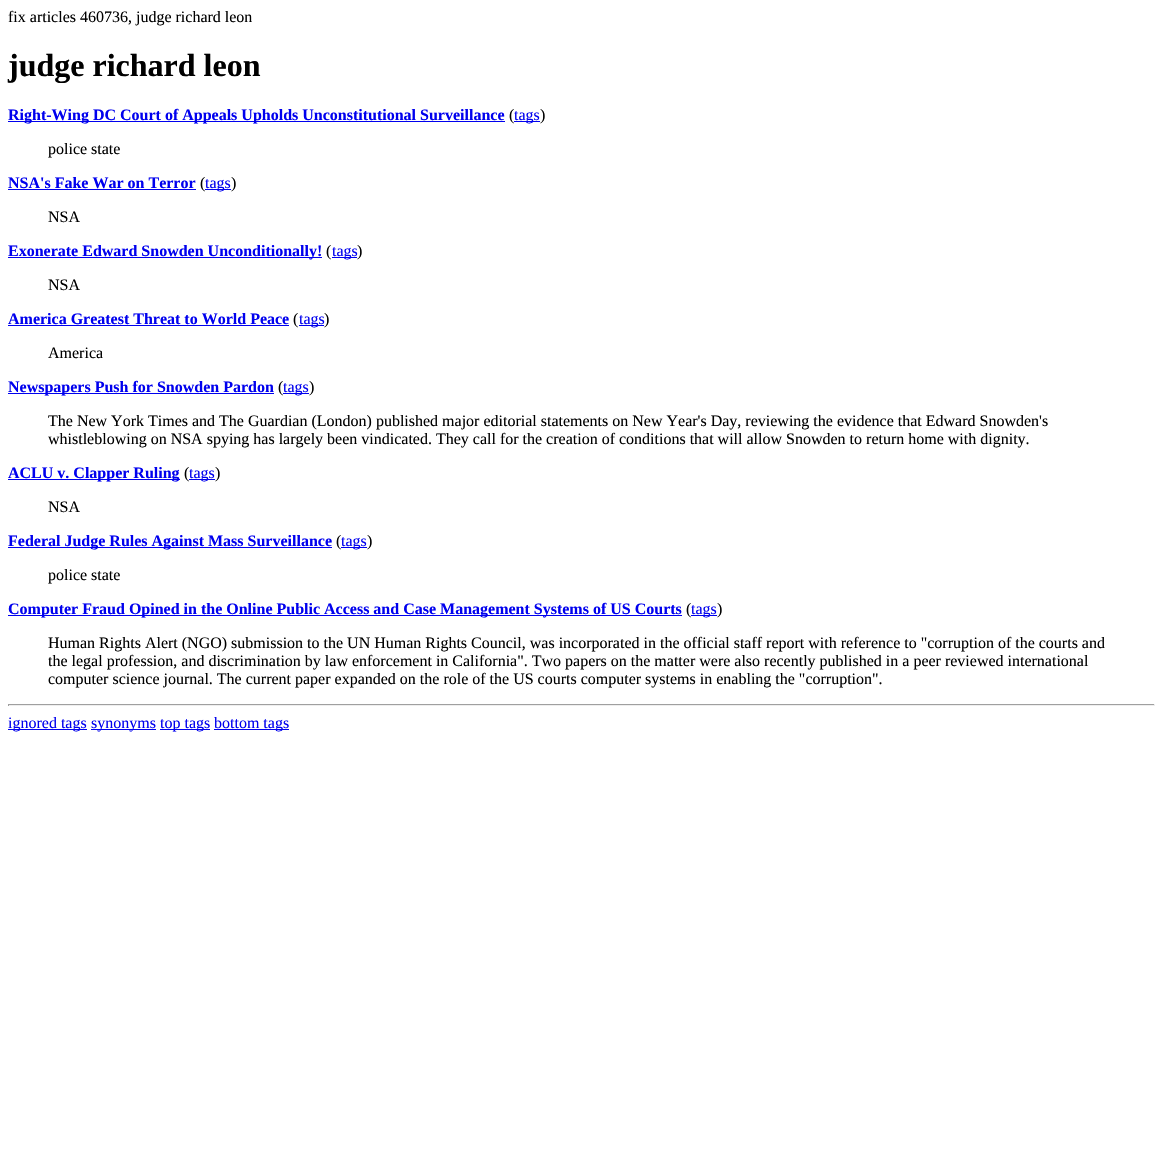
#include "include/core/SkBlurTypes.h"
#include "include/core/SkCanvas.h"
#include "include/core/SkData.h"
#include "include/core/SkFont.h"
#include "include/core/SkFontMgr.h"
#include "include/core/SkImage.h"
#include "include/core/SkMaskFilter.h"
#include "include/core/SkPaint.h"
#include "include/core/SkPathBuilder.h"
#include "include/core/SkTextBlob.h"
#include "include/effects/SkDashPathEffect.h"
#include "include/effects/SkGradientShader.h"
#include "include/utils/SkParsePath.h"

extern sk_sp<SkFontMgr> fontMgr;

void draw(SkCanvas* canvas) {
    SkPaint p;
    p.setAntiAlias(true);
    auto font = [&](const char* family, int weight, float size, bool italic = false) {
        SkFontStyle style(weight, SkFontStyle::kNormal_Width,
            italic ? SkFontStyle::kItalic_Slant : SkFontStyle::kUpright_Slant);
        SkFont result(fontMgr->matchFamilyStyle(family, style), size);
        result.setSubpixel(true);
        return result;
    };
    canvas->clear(0xFFFFFFFF);
    auto font1 = font("Liberation Serif", 400, 16);
    p.setColor(0xFF000000);
    canvas->drawString("fix articles 460736, judge richard leon", 8, 22, font1, p);
    auto font2 = font("Liberation Serif", 700, 32);
    canvas->drawString("judge richard leon", 8, 76, font2, p);
    p.setColor(0xFF0000EE);
    canvas->drawRect(SkRect::MakeLTRB(8, 121, 505, 122), p);
    auto font3 = font("Liberation Serif", 700, 16);
    canvas->drawString("Right-Wing DC Court of Appeals Upholds Unconstitutional Surveillance", 8, 120, font3, p);
    p.setColor(0xFF000000);
    canvas->drawString("(", 509, 120, font1, p);
    p.setColor(0xFF0000EE);
    canvas->drawRect(SkRect::MakeLTRB(514, 121, 540, 122), p);
    canvas->drawString("tags", 514, 120, font1, p);
    p.setColor(0xFF000000);
    canvas->drawString(")", 540, 120, font1, p);
    canvas->drawString("police state", 48, 154, font1, p);
    p.setColor(0xFF0000EE);
    canvas->drawString("NSA's Fake War on Terror", 8, 188, font3, p);
    canvas->drawRect(SkRect::MakeLTRB(8, 189, 196, 190), p);
    p.setColor(0xFF000000);
    canvas->drawString("(", 200, 188, font1, p);
    p.setColor(0xFF0000EE);
    canvas->drawRect(SkRect::MakeLTRB(205, 189, 231, 190), p);
    canvas->drawString("tags", 205, 188, font1, p);
    p.setColor(0xFF000000);
    canvas->drawString(")", 231, 188, font1, p);
    canvas->drawString("NSA", 48, 222, font1, p);
    p.setColor(0xFF0000EE);
    canvas->drawRect(SkRect::MakeLTRB(8, 257, 322, 258), p);
    canvas->drawString("Exonerate Edward Snowden Unconditionally!", 8, 256, font3, p);
    p.setColor(0xFF000000);
    canvas->drawString("(", 326, 256, font1, p);
    p.setColor(0xFF0000EE);
    canvas->drawRect(SkRect::MakeLTRB(332, 257, 357, 258), p);
    canvas->drawString("tags", 332, 256, font1, p);
    p.setColor(0xFF000000);
    canvas->drawString(")", 357, 256, font1, p);
    canvas->drawString("NSA", 48, 290, font1, p);
    p.setColor(0xFF0000EE);
    canvas->drawString("America Greatest Threat to World Peace", 8, 324, font3, p);
    canvas->drawRect(SkRect::MakeLTRB(8, 325, 289, 326), p);
    p.setColor(0xFF000000);
    canvas->drawString("(", 293, 324, font1, p);
    p.setColor(0xFF0000EE);
    canvas->drawRect(SkRect::MakeLTRB(299, 325, 324, 326), p);
    canvas->drawString("tags", 299, 324, font1, p);
    p.setColor(0xFF000000);
    canvas->drawString(")", 324, 324, font1, p);
    canvas->drawString("America", 48, 358, font1, p);
    p.setColor(0xFF0000EE);
    canvas->drawRect(SkRect::MakeLTRB(8, 393, 274, 394), p);
    canvas->drawString("Newspapers Push for Snowden Pardon", 8, 392, font3, p);
    p.setColor(0xFF000000);
    canvas->drawString("(", 278, 392, font1, p);
    p.setColor(0xFF0000EE);
    canvas->drawRect(SkRect::MakeLTRB(283, 393, 309, 394), p);
    canvas->drawString("tags", 283, 392, font1, p);
    p.setColor(0xFF000000);
    {
        const struct { const char* s; float x, y; } items[] = {
            {")", 309, 392},
            {"The New York Times and The Guardian (London) published major editorial statements on New Year's Day, reviewing the evidence that Edward Snowden's", 48, 426},
            {"whistleblowing on NSA spying has largely been vindicated. They call for the creation of conditions that will allow Snowden to return home with dignity.", 48, 444},
        };
        for (auto [s, x, y] : items) {
            canvas->drawString(s, x, y, font1, p);
        }
    }
    p.setColor(0xFF0000EE);
    canvas->drawRect(SkRect::MakeLTRB(8, 479, 180, 480), p);
    canvas->drawString("ACLU v. Clapper Ruling", 8, 478, font3, p);
    p.setColor(0xFF000000);
    canvas->drawString("(", 184, 478, font1, p);
    p.setColor(0xFF0000EE);
    canvas->drawRect(SkRect::MakeLTRB(189, 479, 215, 480), p);
    canvas->drawString("tags", 189, 478, font1, p);
    p.setColor(0xFF000000);
    canvas->drawString(")", 215, 478, font1, p);
    canvas->drawString("NSA", 48, 512, font1, p);
    p.setColor(0xFF0000EE);
    canvas->drawRect(SkRect::MakeLTRB(8, 547, 332, 548), p);
    canvas->drawString("Federal Judge Rules Against Mass Surveillance", 8, 546, font3, p);
    p.setColor(0xFF000000);
    canvas->drawString("(", 336, 546, font1, p);
    p.setColor(0xFF0000EE);
    canvas->drawRect(SkRect::MakeLTRB(341, 547, 367, 548), p);
    canvas->drawString("tags", 341, 546, font1, p);
    p.setColor(0xFF000000);
    canvas->drawString(")", 367, 546, font1, p);
    canvas->drawString("police state", 48, 580, font1, p);
    p.setColor(0xFF0000EE);
    canvas->drawRect(SkRect::MakeLTRB(8, 615, 682, 616), p);
    canvas->drawString("Computer Fraud Opined in the Online Public Access and Case Management Systems of US Courts", 8, 614, font3, p);
    p.setColor(0xFF000000);
    canvas->drawString("(", 686, 614, font1, p);
    p.setColor(0xFF0000EE);
    canvas->drawRect(SkRect::MakeLTRB(691, 615, 717, 616), p);
    canvas->drawString("tags", 691, 614, font1, p);
    p.setColor(0xFF000000);
    {
        const struct { const char* s; float x, y; } items[] = {
            {")", 717, 614},
            {"Human Rights Alert (NGO) submission to the UN Human Rights Council, was incorporated in the official staff report with reference to \"corruption of the courts and", 48, 648},
            {"the legal profession, and discrimination by law enforcement in California\". Two papers on the matter were also recently published in a peer reviewed international", 48, 666},
            {"computer science journal. The current paper expanded on the role of the US courts computer systems in enabling the \"corruption\".", 48, 684},
        };
        for (auto [s, x, y] : items) {
            canvas->drawString(s, x, y, font1, p);
        }
    }
    {
        const struct { float l, t, r, b; SkColor color; } items[] = {
            {8, 704, 1155, 705, 0xFF9F9F9F},
            {1154, 704, 1155, 706, 0xFFEEEEEE},
            {8, 705, 1155, 706, 0xFFEEEEEE},
            {8, 704, 9, 706, 0xFF9F9F9F},
            {8, 729, 87, 730, 0xFF0000EE},
        };
        for (auto [l, t, r, b, color] : items) {
            p.setColor(color);
            canvas->drawRect(SkRect::MakeLTRB(l, t, r, b), p);
        }
    }
    canvas->drawString("ignored tags", 8, 728, font1, p);
    canvas->drawRect(SkRect::MakeLTRB(91, 729, 156, 730), p);
    canvas->drawString("synonyms", 91, 728, font1, p);
    canvas->drawRect(SkRect::MakeLTRB(160, 729, 210, 730), p);
    canvas->drawString("top tags", 160, 728, font1, p);
    canvas->drawRect(SkRect::MakeLTRB(214, 729, 289, 730), p);
    canvas->drawString("bottom tags", 214, 728, font1, p);
}
